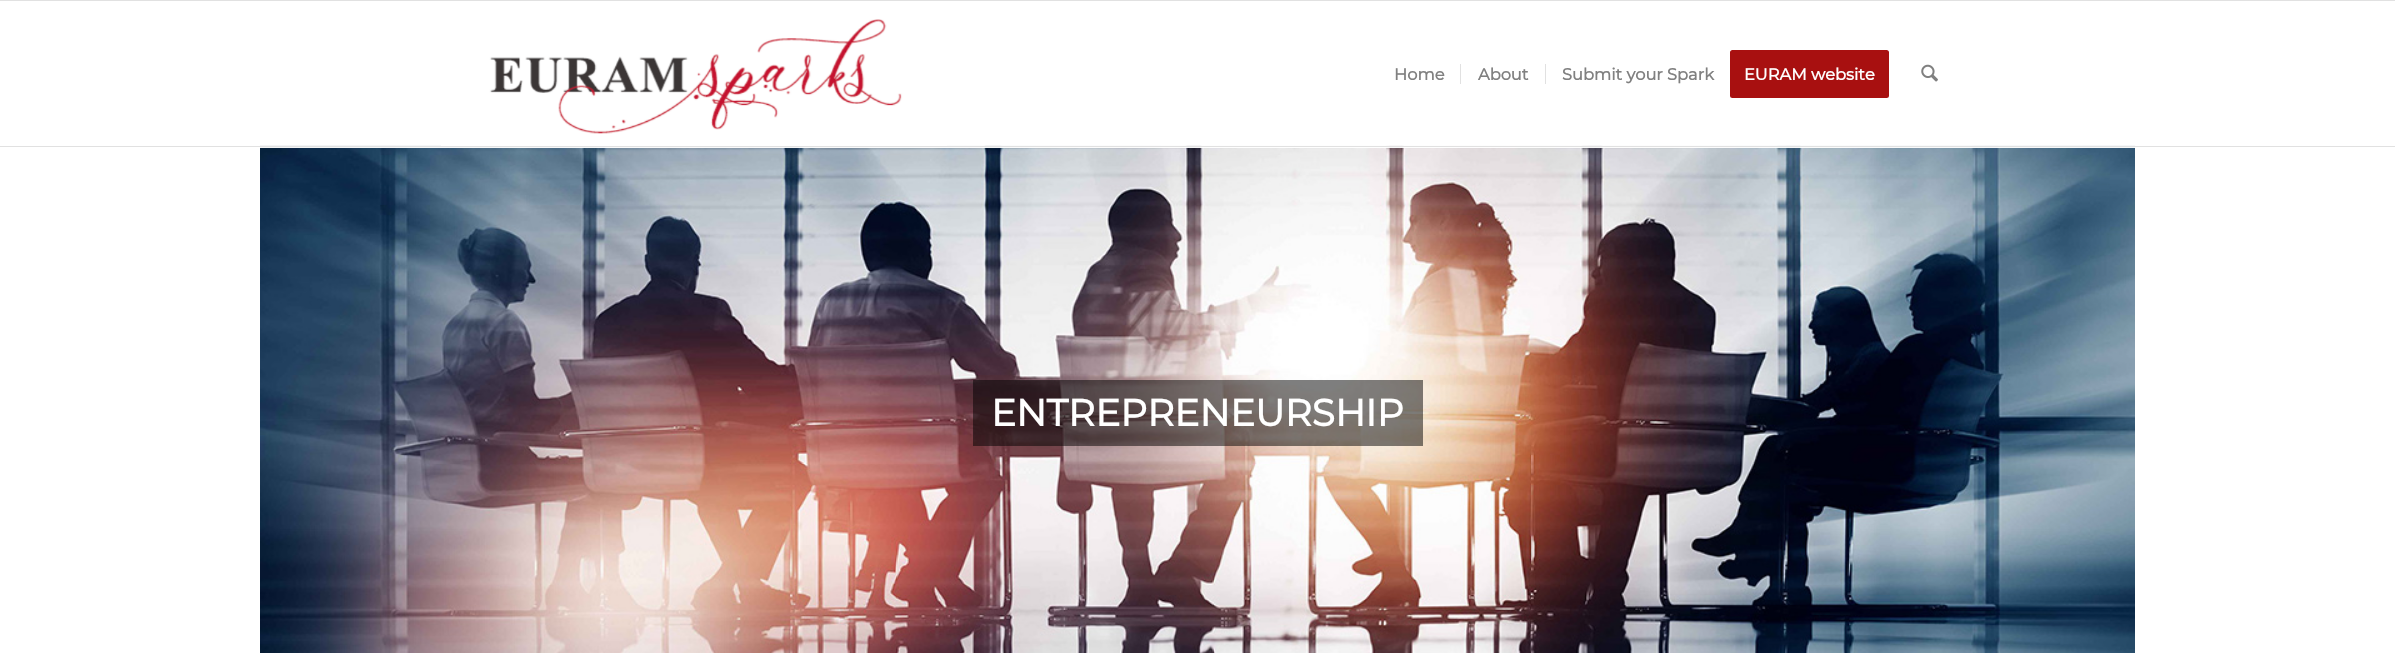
#include "include/core/SkBlurTypes.h"
#include "include/core/SkCanvas.h"
#include "include/core/SkData.h"
#include "include/core/SkFont.h"
#include "include/core/SkFontMgr.h"
#include "include/core/SkImage.h"
#include "include/core/SkMaskFilter.h"
#include "include/core/SkPaint.h"
#include "include/core/SkPathBuilder.h"
#include "include/core/SkTextBlob.h"
#include "include/effects/SkDashPathEffect.h"
#include "include/effects/SkGradientShader.h"
#include "include/utils/SkParsePath.h"

extern sk_sp<SkFontMgr> fontMgr;

void draw(SkCanvas* canvas) {
    SkPaint p;
    p.setAntiAlias(true);
    auto font = [&](const char* family, int weight, float size, bool italic = false) {
        SkFontStyle style(weight, SkFontStyle::kNormal_Width,
            italic ? SkFontStyle::kItalic_Slant : SkFontStyle::kUpright_Slant);
        SkFont result(fontMgr->matchFamilyStyle(family, style), size);
        result.setSubpixel(true);
        return result;
    };
    auto drawPhoto = [&](const char* path, float l, float t, float r, float b) {
        auto image = SkImages::DeferredFromEncodedData(SkData::MakeFromFileName(path));
        canvas->drawImageRect(image, SkRect::MakeLTRB(l, t, r, b), SkSamplingOptions());
    };
    canvas->clear(0xFFFFFFFF);
    p.setColor(0xFFE1E1E1);
    canvas->drawRect(SkRect::MakeLTRB(0, 0, 2395, 1), p);
    drawPhoto("media/3.png", 260, 145, 2135, 653);
    p.setColor(0xF2FFFFFF);
    canvas->drawRect(SkRect::MakeLTRB(260, 145, 2135, 148), p);
    p.setColor(0xFFE1E1E1);
    canvas->drawRect(SkRect::MakeLTRB(0, 146, 2395, 147), p);
    drawPhoto("media/1.png", 441, 19, 947, 146);
    auto font1 = font("Montserrat", 700, 16.25f);
    p.setColor(0xFF808080);
    canvas->drawString("Home", 1394, 80, font1, p);
    canvas->drawString("About", 1478, 80, font1, p);
    p.setColor(0xFFE1E1E1);
    canvas->drawRect(SkRect::MakeLTRB(1460, 64, 1461, 84), p);
    p.setColor(0xFF808080);
    canvas->drawString("Submit your Spark", 1562, 80, font1, p);
    p.setColor(0xFFE1E1E1);
    canvas->drawRect(SkRect::MakeLTRB(1545, 64, 1546, 84), p);
    p.setColor(0xFFA81010);
    canvas->drawRoundRect(SkRect::MakeLTRB(1731.5f, 51.5f, 1887.5f, 96.5f), 1, 1, p);
    p.setStyle(SkPaint::kStroke_Style);
    p.setStrokeWidth(3);
    canvas->drawRoundRect(SkRect::MakeLTRB(1731.5f, 51.5f, 1887.5f, 96.5f), 1, 1, p);
    p.setStyle(SkPaint::kFill_Style);
    p.setColor(0xFFFFFFFF);
    canvas->drawString("EURAM website", 1744, 80, font1, p);
    drawPhoto("media/2.png", 1921, 64, 1938, 82);
    p.setColor(0x80000000);
    canvas->drawRect(SkRect::MakeLTRB(973, 380, 1423, 446), p);
    auto font2 = font("Montserrat", 700, 37.5f);
    p.setColor(0xFFFFFFFF);
    canvas->drawString("ENTREPRENEURSHIP", 991, 426, font2, p);
}
